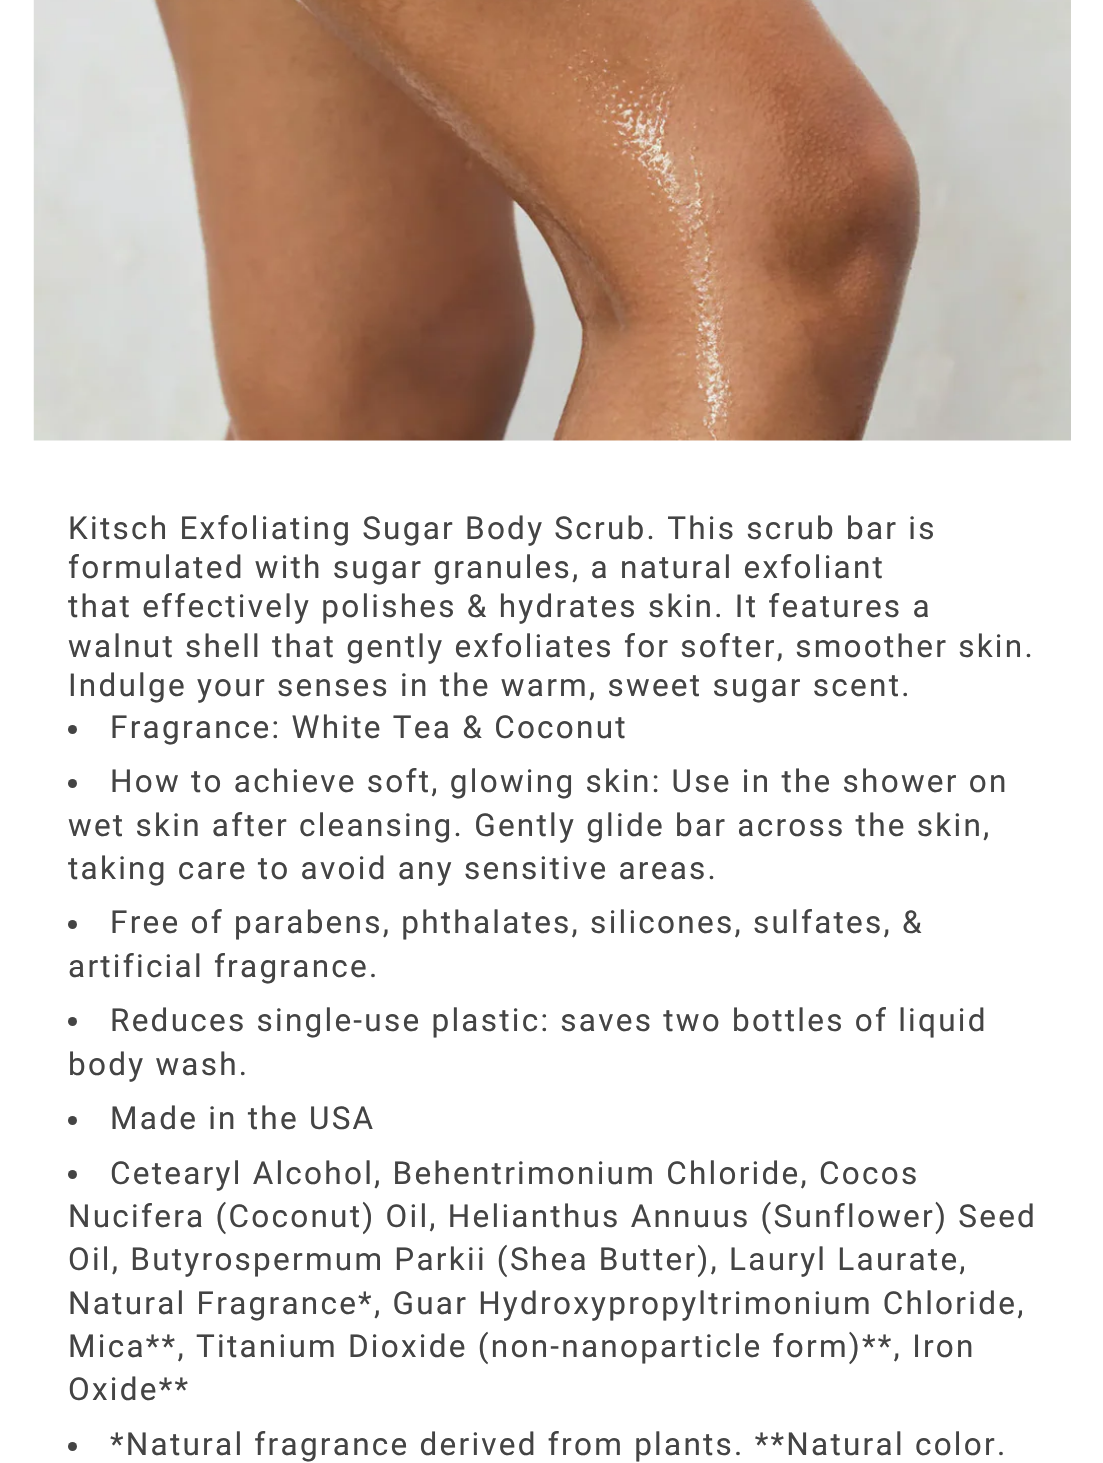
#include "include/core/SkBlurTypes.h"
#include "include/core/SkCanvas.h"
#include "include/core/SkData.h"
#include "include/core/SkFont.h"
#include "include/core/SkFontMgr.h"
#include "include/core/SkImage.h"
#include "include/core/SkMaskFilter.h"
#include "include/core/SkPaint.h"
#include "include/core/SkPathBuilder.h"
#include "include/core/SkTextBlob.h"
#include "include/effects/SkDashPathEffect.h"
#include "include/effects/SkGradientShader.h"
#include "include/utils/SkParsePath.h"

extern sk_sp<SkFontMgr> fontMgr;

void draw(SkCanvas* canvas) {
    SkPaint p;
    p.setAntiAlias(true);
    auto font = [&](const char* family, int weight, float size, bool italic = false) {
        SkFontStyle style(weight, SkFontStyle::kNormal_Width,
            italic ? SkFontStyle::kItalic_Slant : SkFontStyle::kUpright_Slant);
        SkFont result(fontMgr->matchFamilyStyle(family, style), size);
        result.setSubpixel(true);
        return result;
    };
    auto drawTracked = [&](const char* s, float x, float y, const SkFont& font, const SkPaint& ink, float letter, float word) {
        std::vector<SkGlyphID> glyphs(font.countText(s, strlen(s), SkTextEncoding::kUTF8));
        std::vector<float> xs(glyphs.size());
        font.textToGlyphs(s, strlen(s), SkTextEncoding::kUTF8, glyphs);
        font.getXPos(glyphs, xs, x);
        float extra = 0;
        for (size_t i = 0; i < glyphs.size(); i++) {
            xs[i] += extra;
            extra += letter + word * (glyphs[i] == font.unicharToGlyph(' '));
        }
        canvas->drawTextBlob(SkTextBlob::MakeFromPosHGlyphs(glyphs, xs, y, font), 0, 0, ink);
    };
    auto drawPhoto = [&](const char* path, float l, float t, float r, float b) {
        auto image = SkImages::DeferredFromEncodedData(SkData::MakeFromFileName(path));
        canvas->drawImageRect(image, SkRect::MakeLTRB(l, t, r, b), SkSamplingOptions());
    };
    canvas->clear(0xFFFFFFFF);
    drawPhoto("media/1.png", 33, 0, 1071, 441);
    auto font1 = font("Roboto", 400, 31.5f);
    p.setColor(0xFF444444);
    {
        const struct { const char* s; float x, y; } items[] = {
            {"Kitsch Exfoliating Sugar Body Scrub. This scrub bar is", 68, 539},
            {"formulated with sugar granules, a natural exfoliant", 68, 578},
            {"that effectively polishes & hydrates skin. It features a", 68, 617},
            {"walnut shell that gently exfoliates for softer, smoother skin.", 68, 657},
            {"Indulge your senses in the warm, sweet sugar scent.", 68, 696},
        };
        for (auto [s, x, y] : items) {
            drawTracked(s, x, y, font1, p, 2.25f, 0);
        }
    }
    canvas->drawCircle(72.5f, 729.5f, 4.5f, p);
    drawTracked("Fragrance: White Tea & Coconut", 110, 738, font1, p, 2.25f, 0);
    canvas->drawCircle(72.5f, 783.5f, 4.5f, p);
    {
        const struct { const char* s; float x, y; } items[] = {
            {"How to achieve soft, glowing skin: Use in the shower on", 110, 792},
            {"wet skin after cleansing. Gently glide bar across the skin,", 68, 836},
            {"taking care to avoid any sensitive areas.", 68, 879},
        };
        for (auto [s, x, y] : items) {
            drawTracked(s, x, y, font1, p, 2.25f, 0);
        }
    }
    canvas->drawCircle(72.5f, 924.5f, 4.5f, p);
    drawTracked("Free of parabens, phthalates, silicones, sulfates, &", 110, 933, font1, p, 2.25f, 0);
    drawTracked("artificial fragrance.", 68, 977, font1, p, 2.25f, 0);
    canvas->drawCircle(72.5f, 1021.5f, 4.5f, p);
    drawTracked("Reduces single-use plastic: saves two bottles of liquid", 110, 1031, font1, p, 2.25f, 0);
    drawTracked("body wash.", 68, 1075, font1, p, 2.25f, 0);
    canvas->drawCircle(72.5f, 1120.5f, 4.5f, p);
    drawTracked("Made in the USA", 110, 1129, font1, p, 2.25f, 0);
    canvas->drawCircle(72.5f, 1174.5f, 4.5f, p);
    {
        const struct { const char* s; float x, y; } items[] = {
            {"Cetearyl Alcohol, Behentrimonium Chloride, Cocos", 110, 1184},
            {"Nucifera (Coconut) Oil, Helianthus Annuus (Sunflower) Seed", 68, 1227},
            {"Oil, Butyrospermum Parkii (Shea Butter), Lauryl Laurate,", 68, 1270},
            {"Natural Fragrance*, Guar Hydroxypropyltrimonium Chloride,", 68, 1314},
            {"Mica**, Titanium Dioxide (non-nanoparticle form)**, Iron", 68, 1357},
            {"Oxide**", 68, 1400},
        };
        for (auto [s, x, y] : items) {
            drawTracked(s, x, y, font1, p, 2.25f, 0);
        }
    }
    canvas->drawCircle(72.5f, 1446.5f, 4.5f, p);
    drawTracked("*Natural fragrance derived from plants. **Natural color.", 110, 1455, font1, p, 2.25f, 0);
}
